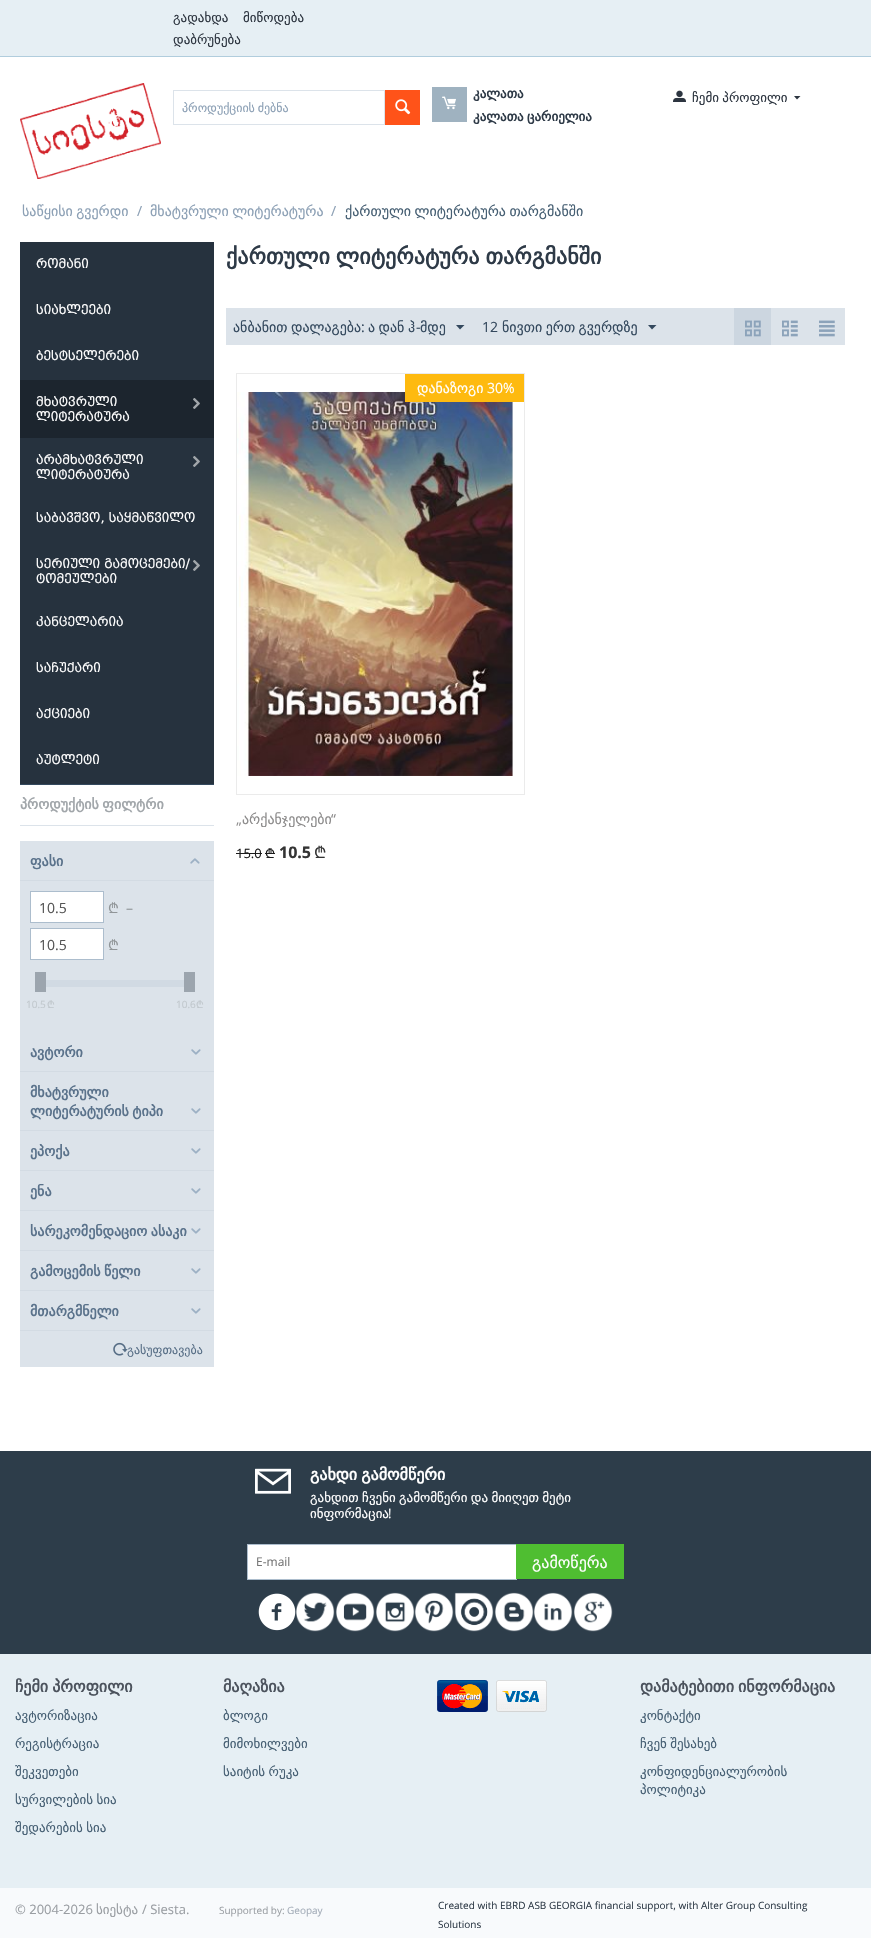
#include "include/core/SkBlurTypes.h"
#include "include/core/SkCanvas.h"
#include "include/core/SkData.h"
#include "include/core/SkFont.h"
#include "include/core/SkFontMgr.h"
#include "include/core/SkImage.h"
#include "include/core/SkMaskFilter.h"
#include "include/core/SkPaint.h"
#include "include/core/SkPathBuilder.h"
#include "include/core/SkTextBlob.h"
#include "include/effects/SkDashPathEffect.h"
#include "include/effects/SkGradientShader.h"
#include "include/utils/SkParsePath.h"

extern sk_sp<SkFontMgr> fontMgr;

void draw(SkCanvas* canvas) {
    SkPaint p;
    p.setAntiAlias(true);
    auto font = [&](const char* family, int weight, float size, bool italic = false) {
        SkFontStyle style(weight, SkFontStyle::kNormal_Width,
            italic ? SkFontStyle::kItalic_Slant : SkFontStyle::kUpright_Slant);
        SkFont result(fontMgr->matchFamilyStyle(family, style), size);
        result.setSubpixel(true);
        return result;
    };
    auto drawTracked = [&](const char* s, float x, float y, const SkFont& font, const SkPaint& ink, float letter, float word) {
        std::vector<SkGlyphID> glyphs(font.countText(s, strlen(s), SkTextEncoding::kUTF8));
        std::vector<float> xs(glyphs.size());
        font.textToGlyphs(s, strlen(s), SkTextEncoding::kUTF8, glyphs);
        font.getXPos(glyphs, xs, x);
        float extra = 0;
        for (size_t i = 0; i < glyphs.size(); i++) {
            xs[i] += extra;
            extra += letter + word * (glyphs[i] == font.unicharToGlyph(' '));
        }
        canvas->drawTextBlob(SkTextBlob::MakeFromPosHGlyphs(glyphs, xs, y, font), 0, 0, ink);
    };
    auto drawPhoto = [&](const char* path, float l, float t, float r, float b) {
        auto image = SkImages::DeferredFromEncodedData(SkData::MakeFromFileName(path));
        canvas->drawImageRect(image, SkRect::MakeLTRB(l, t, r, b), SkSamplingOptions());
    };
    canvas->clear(0xFFFFFFFF);
    p.setColor(0xFFE6EFF4);
    canvas->drawRect(SkRect::MakeLTRB(0, 0, 871, 56), p);
    p.setColor(0xFFB1CDDD);
    canvas->drawRect(SkRect::MakeLTRB(0, 56, 871, 57), p);
    auto font1 = font("DejaVu Sans", 400, 13);
    p.setColor(0xFF2D3540);
    {
        const struct { const char* s; float x, y; } items[] = {
            {"გადახდა", 173, 22},
            {"მიწოდება", 243, 22},
            {"დაბრუნება", 173, 44},
        };
        for (auto [s, x, y] : items) {
            canvas->drawString(s, x, y, font1, p);
        }
    }
    drawPhoto("media/1.png", 20, 83, 161, 179);
    p.setStyle(SkPaint::kStroke_Style);
    p.setStrokeWidth(1);
    p.setColor(0xFFDCE3EA);
    canvas->drawRect(SkRect::MakeLTRB(173.5f, 90.5f, 384.5f, 124.5f), p);
    auto font2 = font("DejaVu Sans", 400, 12);
    p.setStyle(SkPaint::kFill_Style);
    p.setColor(0xFF8CA0B5);
    drawTracked("პროდუქციის ძებნა", 182, 112, font2, p, 0, -1);
    p.setColor(0xFFFF5319);
    canvas->drawRect(SkRect::MakeLTRB(385, 90, 420, 125), p);
    drawPhoto("media/2.png", 395, 99, 411, 115);
    p.setColor(0xFF9FB2C0);
    canvas->drawRect(SkRect::MakeLTRB(432, 87, 467, 122), p);
    drawPhoto("media/3.png", 442, 96, 456, 110);
    auto font3 = font("DejaVu Sans", 700, 13);
    p.setColor(0xFF2E3A47);
    canvas->drawString("კალათა", 473, 98, font3, p);
    drawTracked("კალათა ცარიელია", 473, 121, font3, p, 0, -0.75f);
    drawPhoto("media/4.png", 673, 90, 686, 102);
    p.setColor(0xFF2D3540);
    drawTracked("ჩემი პროფილი", 692, 102, font1, p, 0, -0.75f);
    canvas->drawPath(SkPathBuilder().moveTo(797, 99.5f).lineTo(794, 96).lineTo(800.5f, 96).close().detach(), p);
    auto font4 = font("DejaVu Sans", 400, 14);
    p.setColor(0xFF8CA0B5);
    drawTracked("საწყისი გვერდი", 22, 216, font4, p, 0, -1);
    auto font5 = font("Open Sans", 400, 14);
    canvas->drawString("/", 137, 216, font5, p);
    drawTracked("მხატვრული ლიტერატურა", 150, 216, font4, p, 0, -1);
    canvas->drawString("/", 331, 216, font5, p);
    p.setColor(0xFF465F73);
    drawTracked("ქართული ლიტერატურა თარგმანში", 345, 216, font4, p, 0, -1);
    p.setColor(0xFF26323E);
    canvas->drawRect(SkRect::MakeLTRB(20, 242, 214, 784), p);
    p.setColor(0xFF34495E);
    canvas->drawRect(SkRect::MakeLTRB(20, 784, 214, 785), p);
    auto font6 = font("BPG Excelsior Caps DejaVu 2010", 400, 13);
    p.setColor(0xFFFFFFFF);
    {
        const struct { const char* s; float x, y; } items[] = {
            {"რომანი", 36, 268},
            {"სიახლეები", 36, 314},
            {"ბესტსელერები", 36, 360},
        };
        for (auto [s, x, y] : items) {
            canvas->drawString(s, x, y, font6, p);
        }
    }
    p.setColor(0xFF1C252E);
    canvas->drawRect(SkRect::MakeLTRB(20, 380, 214, 438), p);
    p.setColor(0xFFFFFFFF);
    canvas->drawString("მხატვრული", 36, 406, font6, p);
    canvas->drawString("ლიტერატურა", 36, 421, font6, p);
    drawPhoto("media/5.png", 193, 398, 200, 409);
    canvas->drawString("არამხატვრული", 36, 464, font6, p);
    canvas->drawString("ლიტერატურა", 36, 479, font6, p);
    drawPhoto("media/6.png", 193, 456, 200, 467);
    {
        const struct { const char* s; float x, y; } items[] = {
            {"საბავშვო, საყმაწვილო", 36, 522},
            {"სერიული გამოცემები/", 36, 568},
            {"ტომეულები", 36, 583},
        };
        for (auto [s, x, y] : items) {
            canvas->drawString(s, x, y, font6, p);
        }
    }
    drawPhoto("media/6.png", 193, 560, 200, 571);
    {
        const struct { const char* s; float x, y; } items[] = {
            {"კანცელარია", 36, 626},
            {"საჩუქარი", 36, 672},
            {"აქციები", 36, 718},
            {"აუტლეტი", 36, 764},
        };
        for (auto [s, x, y] : items) {
            canvas->drawString(s, x, y, font6, p);
        }
    }
    p.setColor(0xFFDCE3EA);
    canvas->drawRect(SkRect::MakeLTRB(20, 825, 214, 826), p);
    auto font7 = font("DejaVu Sans", 700, 14);
    p.setColor(0xFFA1A6AA);
    drawTracked("პროდუქტის ფილტრი", 20, 809, font7, p, 0, -1);
    p.setColor(0xFFDCE3EA);
    canvas->drawRect(SkRect::MakeLTRB(20, 841, 214, 1367), p);
    p.setColor(0xFFD3DBE3);
    canvas->drawRect(SkRect::MakeLTRB(20, 880, 214, 881), p);
    p.setColor(0xFF5A728B);
    canvas->drawString("ფასი", 30, 866, font7, p);
    drawPhoto("media/7.png", 190, 858, 200, 864);
    p.setColor(0xFFFFFFFF);
    canvas->drawRect(SkRect::MakeLTRB(30.5f, 891.5f, 103.5f, 922.5f), p);
    p.setStyle(SkPaint::kStroke_Style);
    p.setColor(0xFFACBDCD);
    canvas->drawRect(SkRect::MakeLTRB(30.5f, 891.5f, 103.5f, 922.5f), p);
    p.setStyle(SkPaint::kFill_Style);
    p.setColor(0xFF545454);
    canvas->drawString("10.5", 39, 913, font5, p);
    auto font8 = font("Noto Sans", 400, 14);
    p.setColor(0xFF909598);
    canvas->drawString("₾", 108, 913, font8, p);
    canvas->drawString("–", 126, 913, font5, p);
    p.setColor(0xFFFFFFFF);
    canvas->drawRect(SkRect::MakeLTRB(30.5f, 928.5f, 103.5f, 959.5f), p);
    p.setStyle(SkPaint::kStroke_Style);
    p.setColor(0xFFACBDCD);
    canvas->drawRect(SkRect::MakeLTRB(30.5f, 928.5f, 103.5f, 959.5f), p);
    p.setStyle(SkPaint::kFill_Style);
    p.setColor(0xFF545454);
    canvas->drawString("10.5", 39, 950, font5, p);
    p.setColor(0xFF909598);
    canvas->drawString("₾", 108, 950, font8, p);
    {
        const struct { float l, t, r, b; SkColor color; } items[] = {
            {43, 980, 192, 987, 0xFFD1DAE3},
            {35, 972, 46, 992, 0xFF9CA5AE},
            {184, 972, 195, 992, 0xFF9CA5AE},
        };
        for (auto [l, t, r, b, color] : items) {
            p.setColor(color);
            canvas->drawRect(SkRect::MakeLTRB(l, t, r, b), p);
        }
    }
    auto font9 = font("Open Sans", 400, 10);
    p.setColor(0xFFC1C8CD);
    canvas->drawString("10.5", 26, 1008, font9, p);
    auto font10 = font("Noto Sans", 400, 10);
    canvas->drawString("₾", 47, 1008, font10, p);
    canvas->drawString("10.6", 176, 1008, font9, p);
    canvas->drawString("₾", 196, 1008, font10, p);
    p.setColor(0xFFD3DBE3);
    canvas->drawRect(SkRect::MakeLTRB(20, 1071, 214, 1072), p);
    p.setColor(0xFF5A728B);
    canvas->drawString("ავტორი", 30, 1057, font7, p);
    drawPhoto("media/8.png", 191, 1049, 201, 1055);
    p.setColor(0xFFD3DBE3);
    canvas->drawRect(SkRect::MakeLTRB(20, 1130, 214, 1131), p);
    p.setColor(0xFF5A728B);
    canvas->drawString("მხატვრული", 30, 1097, font7, p);
    drawTracked("ლიტერატურის ტიპი", 30, 1116, font7, p, 0, -1);
    drawPhoto("media/8.png", 191, 1108, 201, 1114);
    p.setColor(0xFFD3DBE3);
    canvas->drawRect(SkRect::MakeLTRB(20, 1170, 214, 1171), p);
    p.setColor(0xFF5A728B);
    canvas->drawString("ეპოქა", 30, 1156, font7, p);
    drawPhoto("media/8.png", 191, 1148, 201, 1154);
    p.setColor(0xFFD3DBE3);
    canvas->drawRect(SkRect::MakeLTRB(20, 1210, 214, 1211), p);
    p.setColor(0xFF5A728B);
    canvas->drawString("ენა", 30, 1196, font7, p);
    drawPhoto("media/8.png", 191, 1188, 201, 1194);
    p.setColor(0xFFD3DBE3);
    canvas->drawRect(SkRect::MakeLTRB(20, 1250, 214, 1251), p);
    p.setColor(0xFF5A728B);
    drawTracked("სარეკომენდაციო ასაკი", 30, 1236, font7, p, 0, -1);
    drawPhoto("media/8.png", 191, 1228, 201, 1234);
    p.setColor(0xFFD3DBE3);
    canvas->drawRect(SkRect::MakeLTRB(20, 1290, 214, 1291), p);
    p.setColor(0xFF5A728B);
    drawTracked("გამოცემის წელი", 30, 1276, font7, p, 0, -1);
    drawPhoto("media/8.png", 191, 1268, 201, 1274);
    p.setColor(0xFFD3DBE3);
    canvas->drawRect(SkRect::MakeLTRB(20, 1330, 214, 1331), p);
    p.setColor(0xFF5A728B);
    canvas->drawString("მთარგმნელი", 30, 1316, font7, p);
    drawPhoto("media/8.png", 191, 1308, 201, 1314);
    p.setColor(0xFF566D85);
    canvas->drawString("გასუფთავება", 127, 1354, font2, p);
    drawPhoto("media/9.png", 113, 1342, 128, 1356);
    auto font11 = font("DejaVu Sans", 700, 22);
    p.setColor(0xFF2E3A47);
    drawTracked("ქართული ლიტერატურა თარგმანში", 226, 264, font11, p, 0, -1);
    p.setColor(0xFFDCE3EA);
    canvas->drawRect(SkRect::MakeLTRB(226, 308, 845, 345), p);
    p.setColor(0xFF34495E);
    drawTracked("ანბანით დალაგება", 233, 332, font4, p, 0, -1);
    canvas->drawString(":", 361, 332, font5, p);
    drawTracked("ა დან ჰ", 368, 332, font4, p, 0, -1);
    canvas->drawString("-", 416, 332, font5, p);
    canvas->drawString("მდე", 420, 332, font4, p);
    canvas->drawPath(SkPathBuilder().moveTo(460, 329.5f).lineTo(456, 325).lineTo(464.5f, 325).close().detach(), p);
    canvas->drawString("12", 482, 332, font5, p);
    drawTracked("ნივთი ერთ გვერდზე", 502, 332, font4, p, 0, -1);
    canvas->drawPath(SkPathBuilder().moveTo(652, 329.5f).lineTo(648, 325).lineTo(656.5f, 325).close().detach(), p);
    p.setColor(0xFFCCD6E0);
    canvas->drawRect(SkRect::MakeLTRB(734, 308, 771, 345), p);
    drawPhoto("media/10.png", 745, 320, 761, 337);
    drawPhoto("media/11.png", 782, 320, 798, 337);
    drawPhoto("media/12.png", 819, 320, 835, 337);
    p.setStyle(SkPaint::kStroke_Style);
    p.setColor(0xFFEBEBEB);
    canvas->drawRect(SkRect::MakeLTRB(236.5f, 373.5f, 524.5f, 794.5f), p);
    drawPhoto("media/13.png", 237, 392, 513, 776);
    p.setStyle(SkPaint::kFill_Style);
    p.setColor(0xFFFEBA0F);
    canvas->drawRect(SkRect::MakeLTRB(405, 374, 524, 402), p);
    p.setColor(0xFFFFFFFF);
    canvas->drawString("დანაზოგი", 417, 393, font4, p);
    canvas->drawString("30%", 487, 393, font5, p);
    canvas->save();
    canvas->clipRect(SkRect::MakeLTRB(236, 811, 525, 827));
    p.setColor(0xFF8D8C8C);
    canvas->drawString("არქანჯელები", 242, 824, font4, p);
    canvas->restore();
    canvas->drawString("“", 331, 824, font5, p);
    canvas->drawString("„", 236, 824, font5, p);
    auto font12 = font("Open Sans", 400, 13);
    p.setColor(0xFF1B1B1B);
    canvas->drawString("15.0", 236, 858, font12, p);
    canvas->drawRect(SkRect::MakeLTRB(236, 853, 262, 854), p);
    auto font13 = font("Noto Sans", 400, 13);
    canvas->drawString("₾", 265, 858, font13, p);
    canvas->drawRect(SkRect::MakeLTRB(265, 853, 275, 854), p);
    auto font14 = font("Open Sans", 700, 16);
    p.setColor(0xFF343434);
    canvas->drawString("10.5", 279, 858, font14, p);
    auto font15 = font("Noto Sans", 400, 16);
    canvas->drawString("₾", 314, 858, font15, p);
    p.setColor(0xFFE6EFF4);
    canvas->drawRect(SkRect::MakeLTRB(0, 1654, 871, 1888), p);
    p.setColor(0xFF2D3D4A);
    canvas->drawRect(SkRect::MakeLTRB(0, 1451, 871, 1654), p);
    drawPhoto("media/14.png", 255, 1468, 291, 1494);
    auto font16 = font("DejaVu Sans", 700, 16);
    p.setColor(0xFFFFFFFF);
    drawTracked("გახდი გამომწერი", 310, 1480, font16, p, 0, -1);
    drawTracked("გახდით ჩვენი გამომწერი და მიიღეთ მეტი", 310, 1502, font1, p, 0, -0.75f);
    canvas->drawString("ინფორმაცია", 310, 1518, font1, p);
    canvas->drawString("!", 388, 1518, font12, p);
    canvas->drawRect(SkRect::MakeLTRB(247.5f, 1544.5f, 516.5f, 1579.5f), p);
    p.setStyle(SkPaint::kStroke_Style);
    p.setColor(0xFFACBDCD);
    canvas->drawRect(SkRect::MakeLTRB(247.5f, 1544.5f, 516.5f, 1579.5f), p);
    auto font17 = font("Open Sans", 400, 12);
    p.setStyle(SkPaint::kFill_Style);
    p.setColor(0xFF757575);
    canvas->drawString("E-mail", 256, 1566, font17, p);
    p.setColor(0xFF4FBE31);
    canvas->drawRect(SkRect::MakeLTRB(516, 1544, 624, 1579), p);
    auto font18 = font("DejaVu Sans", 400, 16);
    p.setColor(0xFFFFFFFF);
    canvas->drawString("გამოწერა", 532, 1568, font18, p);
    drawPhoto("media/15.png", 258, 1593, 296, 1631);
    drawPhoto("media/16.png", 295, 1592, 335, 1632);
    drawPhoto("media/17.png", 335, 1592, 375, 1632);
    drawPhoto("media/18.png", 375, 1592, 415, 1632);
    drawPhoto("media/19.png", 414, 1592, 454, 1632);
    drawPhoto("media/20.png", 454, 1592, 494, 1632);
    drawPhoto("media/21.png", 494, 1592, 534, 1632);
    drawPhoto("media/22.png", 533, 1592, 573, 1632);
    drawPhoto("media/23.png", 573, 1592, 613, 1632);
    p.setColor(0xFF4C535D);
    drawTracked("ჩემი პროფილი", 15, 1692, font16, p, 0, -1);
    p.setColor(0xFF465F73);
    {
        const struct { const char* s; float x, y; } items[] = {
            {"ავტორიზაცია", 15, 1720},
            {"რეგისტრაცია", 15, 1748},
            {"შეკვეთები", 15, 1776},
        };
        for (auto [s, x, y] : items) {
            canvas->drawString(s, x, y, font1, p);
        }
    }
    drawTracked("სურვილების სია", 15, 1804, font1, p, 0, -0.75f);
    drawTracked("შედარების სია", 15, 1832, font1, p, 0, -0.75f);
    p.setColor(0xFF4C535D);
    canvas->drawString("მაღაზია", 223, 1692, font16, p);
    p.setColor(0xFF465F73);
    canvas->drawString("ბლოგი", 223, 1720, font1, p);
    canvas->drawString("მიმოხილვები", 223, 1748, font1, p);
    drawTracked("საიტის რუკა", 223, 1776, font1, p, 0, -0.75f);
    drawPhoto("media/24.png", 437, 1680, 488, 1712);
    drawPhoto("media/25.png", 496, 1680, 547, 1712);
    p.setColor(0xFF4C535D);
    drawTracked("დამატებითი ინფორმაცია", 640, 1692, font16, p, 0, -1);
    p.setColor(0xFF465F73);
    canvas->drawString("კონტაქტი", 640, 1720, font1, p);
    drawTracked("ჩვენ შესახებ", 640, 1748, font1, p, 0, -0.75f);
    canvas->drawString("კონფიდენციალურობის", 640, 1776, font1, p);
    canvas->drawString("პოლიტიკა", 640, 1794, font1, p);
    p.setColor(0xFFF8FAFC);
    canvas->drawRect(SkRect::MakeLTRB(0, 1888, 871, 1938), p);
    p.setColor(0xFF9A9EA3);
    canvas->drawString("© 2004-2026", 15, 1914, font12, p);
    canvas->drawString("სიესტა", 96, 1914, font1, p);
    canvas->drawString("/ Siesta.", 142, 1914, font12, p);
    canvas->drawString("Supported by:", 219, 1914, font9, p);
    p.setColor(0xFFA3ACB8);
    canvas->drawString("Geopay", 287, 1914, font9, p);
    p.setColor(0xFF2E3A47);
    canvas->drawString("Created with EBRD ASB GEORGIA financial support, with Alter Group Consulting", 438, 1909, font9, p);
    canvas->drawString("Solutions", 438, 1928, font9, p);
}
